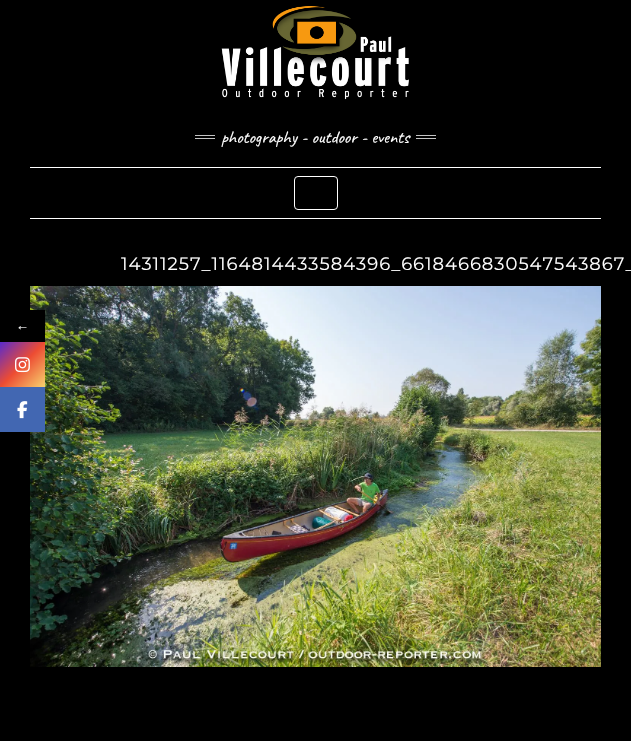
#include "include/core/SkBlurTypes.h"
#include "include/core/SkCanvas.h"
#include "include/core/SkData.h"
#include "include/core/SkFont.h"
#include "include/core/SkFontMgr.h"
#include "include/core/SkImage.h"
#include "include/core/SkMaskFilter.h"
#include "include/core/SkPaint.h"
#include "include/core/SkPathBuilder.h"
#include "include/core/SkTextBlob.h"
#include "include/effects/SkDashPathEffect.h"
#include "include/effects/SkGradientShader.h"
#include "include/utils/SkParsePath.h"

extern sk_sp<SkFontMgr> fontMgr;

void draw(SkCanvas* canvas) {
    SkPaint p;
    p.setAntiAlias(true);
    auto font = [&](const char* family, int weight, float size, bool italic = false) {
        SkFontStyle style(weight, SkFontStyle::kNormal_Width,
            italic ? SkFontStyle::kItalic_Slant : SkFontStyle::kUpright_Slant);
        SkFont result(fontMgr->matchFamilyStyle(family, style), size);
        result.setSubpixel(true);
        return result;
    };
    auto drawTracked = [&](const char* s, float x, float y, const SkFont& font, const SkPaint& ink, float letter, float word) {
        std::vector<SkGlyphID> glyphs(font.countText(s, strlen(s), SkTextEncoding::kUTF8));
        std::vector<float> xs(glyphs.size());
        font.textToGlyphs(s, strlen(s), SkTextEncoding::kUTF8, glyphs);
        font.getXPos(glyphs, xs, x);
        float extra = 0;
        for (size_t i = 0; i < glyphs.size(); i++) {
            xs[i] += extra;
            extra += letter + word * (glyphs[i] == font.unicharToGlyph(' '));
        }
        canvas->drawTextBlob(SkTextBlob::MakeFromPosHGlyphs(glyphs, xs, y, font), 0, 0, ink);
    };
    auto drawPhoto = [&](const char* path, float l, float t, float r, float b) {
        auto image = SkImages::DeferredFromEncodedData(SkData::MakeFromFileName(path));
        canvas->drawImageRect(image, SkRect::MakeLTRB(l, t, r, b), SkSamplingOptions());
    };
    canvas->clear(0xFF000000);
    drawPhoto("media/1.png", 221, 6, 409, 100);
    p.setColor(0xFFC4C4C4);
    canvas->drawRect(SkRect::MakeLTRB(195, 135, 215, 136), p);
    canvas->drawRect(SkRect::MakeLTRB(195, 138, 215, 139), p);
    auto font1 = font("Caveat", 400, 18);
    p.setColor(0xFFFFFFFF);
    canvas->drawString("photography - outdoor - events", 221, 143, font1, p);
    {
        const struct { float l, t, r, b; SkColor color; } items[] = {
            {416, 135, 436, 136, 0xFFC4C4C4},
            {416, 138, 436, 139, 0xFFC4C4C4},
            {30, 167, 601, 168, 0xFFFFFFFF},
            {30, 218, 601, 219, 0xFFFFFFFF},
        };
        for (auto [l, t, r, b, color] : items) {
            p.setColor(color);
            canvas->drawRect(SkRect::MakeLTRB(l, t, r, b), p);
        }
    }
    p.setStyle(SkPaint::kStroke_Style);
    p.setStrokeWidth(1);
    canvas->drawRoundRect(SkRect::MakeLTRB(294.5f, 176.5f, 337.5f, 209.5f), 3.5f, 3.5f, p);
    auto font2 = font("Montserrat", 400, 18);
    p.setStyle(SkPaint::kFill_Style);
    drawTracked("14311257_1164814433584396_6618466830547543867_", 121, 270, font2, p, 1, 0);
    drawPhoto("media/2.png", 30, 286, 601, 667);
    p.setColor(0x29000000);
    p.setMaskFilter(SkMaskFilter::MakeBlur(kNormal_SkBlurStyle, 3));
    canvas->drawRect(SkRect::MakeLTRB(0, 313, 45, 345), p);
    p.setMaskFilter(nullptr);
    p.setColor(0xFF000000);
    canvas->drawRect(SkRect::MakeLTRB(30, 310, 45, 342), p);
    auto font3 = font("Liberation Serif", 400, 13);
    p.setColor(0xFFFFFFFF);
    canvas->drawString("←", 16, 330, font3, p);
    {
        const SkColor colors[] = {0xFF582BCD, 0xFFED4C33, 0xFFF7D36F};
        const float stops[] = {0, 0.5f, 1};
        const SkPoint ends[] = {{0, 342}, {45, 387}};
        p.setShader(SkGradientShader::MakeLinear(ends, colors, stops, 3, SkTileMode::kClamp));
        p.setAlpha(255);
    }
    canvas->drawRect(SkRect::MakeLTRB(0, 342, 45, 387), p);
    drawPhoto("media/3.png", 15, 357, 30, 373);
    p.setShader(nullptr);
    p.setColor(0xFF4267B2);
    canvas->drawRect(SkRect::MakeLTRB(0, 387, 45, 432), p);
    drawPhoto("media/4.png", 17, 401, 28, 419);
}
